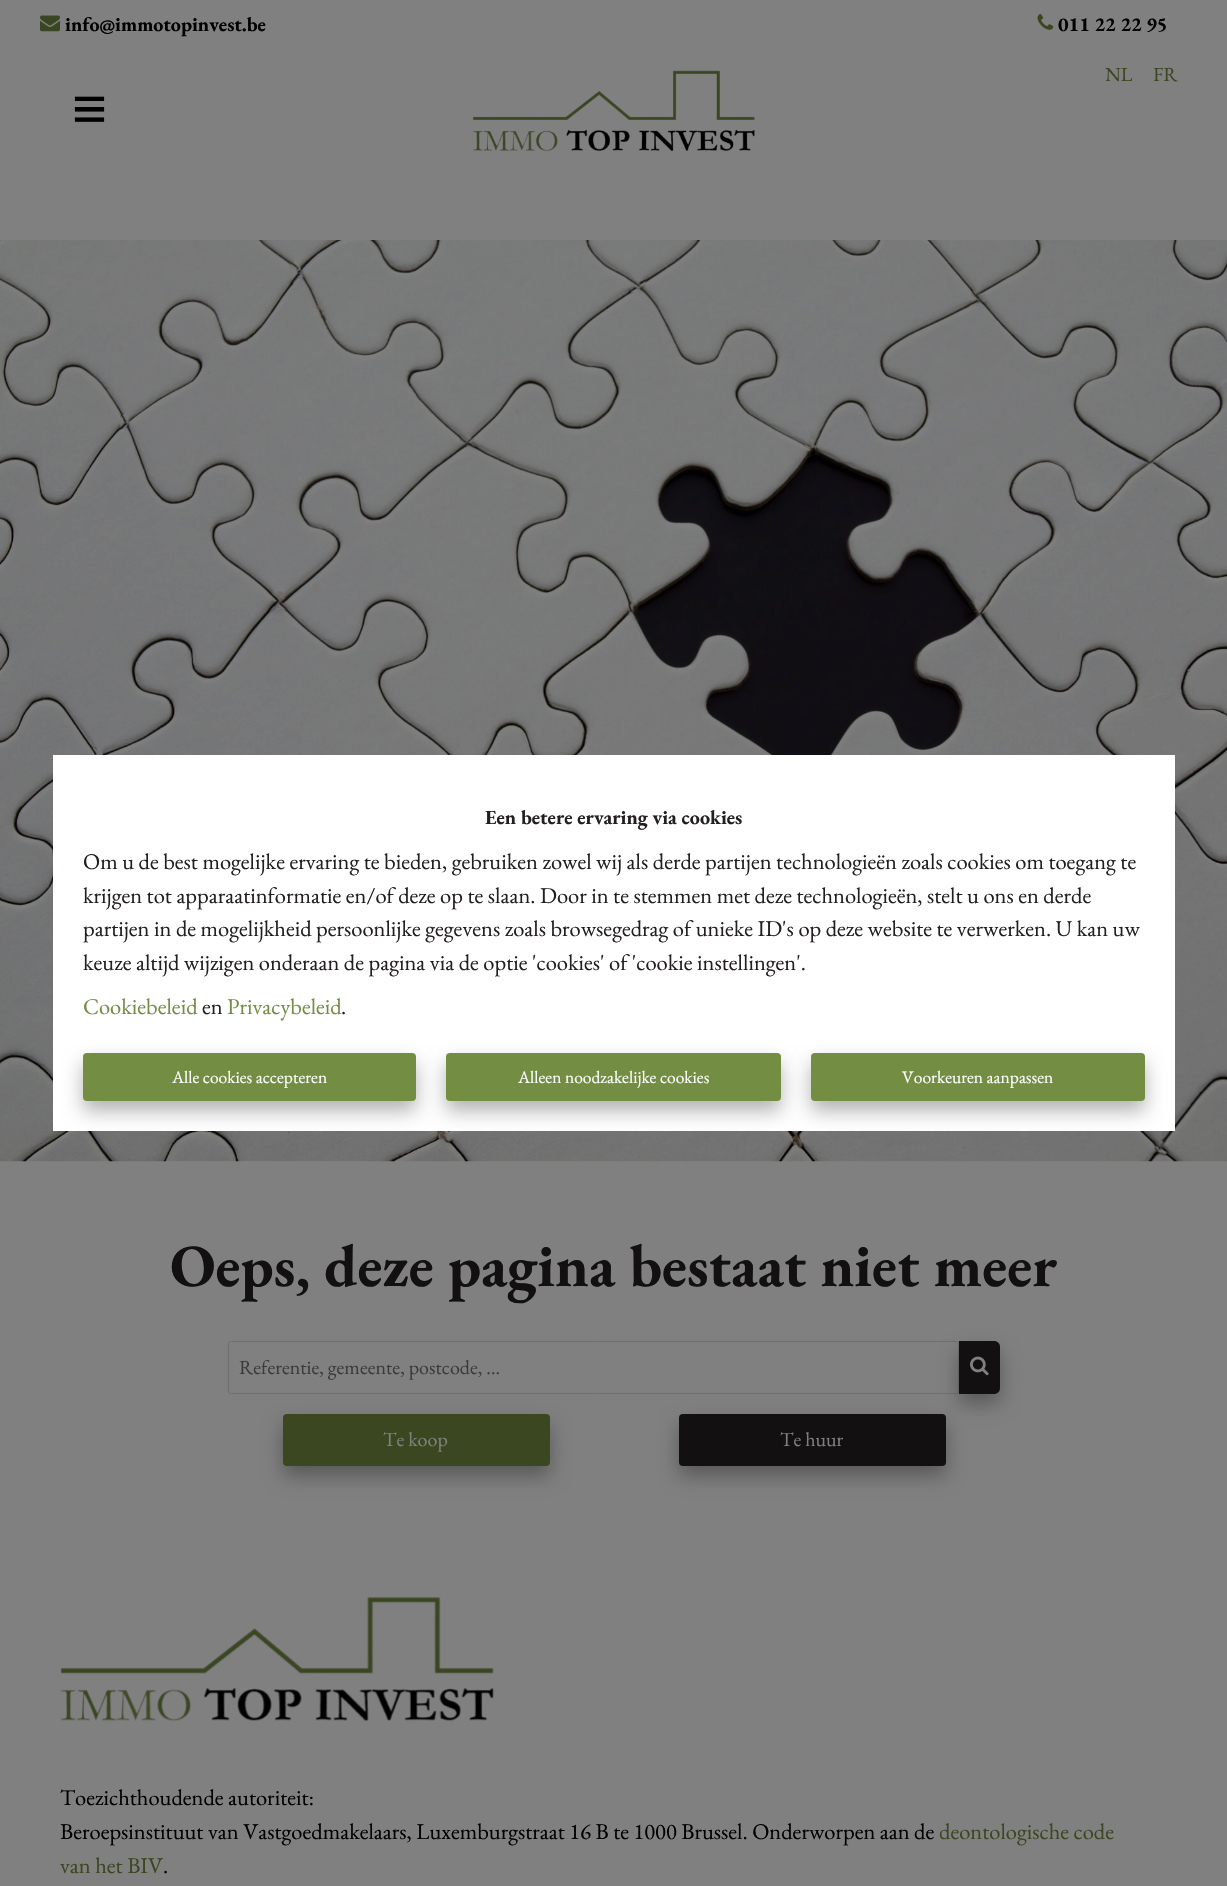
#include "include/core/SkBlurTypes.h"
#include "include/core/SkCanvas.h"
#include "include/core/SkData.h"
#include "include/core/SkFont.h"
#include "include/core/SkFontMgr.h"
#include "include/core/SkImage.h"
#include "include/core/SkMaskFilter.h"
#include "include/core/SkPaint.h"
#include "include/core/SkPathBuilder.h"
#include "include/core/SkTextBlob.h"
#include "include/effects/SkDashPathEffect.h"
#include "include/effects/SkGradientShader.h"
#include "include/utils/SkParsePath.h"

extern sk_sp<SkFontMgr> fontMgr;

void draw(SkCanvas* canvas) {
    SkPaint p;
    p.setAntiAlias(true);
    auto font = [&](const char* family, int weight, float size, bool italic = false) {
        SkFontStyle style(weight, SkFontStyle::kNormal_Width,
            italic ? SkFontStyle::kItalic_Slant : SkFontStyle::kUpright_Slant);
        SkFont result(fontMgr->matchFamilyStyle(family, style), size);
        result.setSubpixel(true);
        return result;
    };
    auto drawPhoto = [&](const char* path, float l, float t, float r, float b) {
        auto image = SkImages::DeferredFromEncodedData(SkData::MakeFromFileName(path));
        canvas->drawImageRect(image, SkRect::MakeLTRB(l, t, r, b), SkSamplingOptions());
    };
    canvas->clear(0xFF808080);
    drawPhoto("media/1.png", 40, 15, 60, 32);
    auto font1 = font("EB Garamond", 700, 20);
    p.setColor(0xFF000000);
    canvas->drawString("info@immotopinvest.be", 65, 31, font1, p);
    drawPhoto("media/2.png", 1037, 14, 1054, 30);
    canvas->drawString("011 22 22 95", 1058, 31, font1, p);
    auto font2 = font("Liberation Sans", 400, 60);
    canvas->drawString("≡", 72, 129, font2, p);
    drawPhoto("media/3.png", 472, 70, 755, 152);
    auto font3 = font("EB Garamond", 400, 20);
    p.setColor(0xFF3A4721);
    canvas->drawString("NL", 1105, 81, font3, p);
    canvas->drawString("FR", 1153, 81, font3, p);
    drawPhoto("media/4.png", 0, 240, 1227, 1162);
    p.setColor(0xFFFFFFFF);
    canvas->drawRect(SkRect::MakeLTRB(53, 755, 1175, 1131), p);
    p.setColor(0xFF231F20);
    canvas->drawString("Een betere ervaring via cookies", 485, 824, font1, p);
    auto font4 = font("EB Garamond", 400, 22.5f);
    {
        const struct { const char* s; float x, y; } items[] = {
            {"Om u de best mogelijke ervaring te bieden, gebruiken zowel wij als derde partijen technologieën zoals cookies om toegang te", 83, 869},
            {"krijgen tot apparaatinformatie en/of deze op te slaan. Door in te stemmen met deze technologieën, stelt u ons en derde", 83, 903},
            {"partijen in de mogelijkheid persoonlijke gegevens zoals browsegedrag of unieke ID's op deze website te verwerken. U kan uw", 83, 936},
            {"keuze altijd wijzigen onderaan de pagina via de optie 'cookies' of 'cookie instellingen'.", 83, 970},
        };
        for (auto [s, x, y] : items) {
            canvas->drawString(s, x, y, font4, p);
        }
    }
    p.setColor(0xFF738D42);
    canvas->drawString("Cookiebeleid", 83, 1014, font4, p);
    p.setColor(0xFF231F20);
    canvas->drawString("en", 202, 1014, font4, p);
    p.setColor(0xFF738D42);
    canvas->drawString("Privacybeleid", 227, 1014, font4, p);
    p.setColor(0xFF231F20);
    canvas->drawString(".", 341, 1014, font4, p);
    p.setColor(0x4D000000);
    p.setMaskFilter(SkMaskFilter::MakeBlur(kNormal_SkBlurStyle, 9.5f));
    canvas->drawRoundRect(SkRect::MakeLTRB(83, 1063, 416, 1111), 4, 4, p);
    p.setMaskFilter(nullptr);
    p.setColor(0xFF738D42);
    canvas->drawRoundRect(SkRect::MakeLTRB(83, 1053, 416, 1101), 4, 4, p);
    auto font5 = font("EB Garamond", 400, 17.5f);
    p.setColor(0xFFFFFFFF);
    canvas->drawString("Alle cookies accepteren", 172, 1083, font5, p);
    p.setColor(0x4D000000);
    p.setMaskFilter(SkMaskFilter::MakeBlur(kNormal_SkBlurStyle, 9.5f));
    canvas->drawRoundRect(SkRect::MakeLTRB(446, 1063, 781, 1111), 4, 4, p);
    p.setMaskFilter(nullptr);
    p.setColor(0xFF738D42);
    canvas->drawRoundRect(SkRect::MakeLTRB(446, 1053, 781, 1101), 4, 4, p);
    p.setColor(0xFFFFFFFF);
    canvas->drawString("Alleen noodzakelijke cookies", 518, 1083, font5, p);
    p.setColor(0x4D000000);
    p.setMaskFilter(SkMaskFilter::MakeBlur(kNormal_SkBlurStyle, 9.5f));
    canvas->drawRoundRect(SkRect::MakeLTRB(811, 1063, 1145, 1111), 4, 4, p);
    p.setMaskFilter(nullptr);
    p.setColor(0xFF738D42);
    canvas->drawRoundRect(SkRect::MakeLTRB(811, 1053, 1145, 1101), 4, 4, p);
    p.setColor(0xFFFFFFFF);
    canvas->drawString("Voorkeuren aanpassen", 902, 1083, font5, p);
    auto font6 = font("EB Garamond", 700, 60);
    p.setColor(0xFF121010);
    canvas->drawString("Oeps, deze pagina bestaat niet meer", 170, 1286, font6, p);
    p.setStyle(SkPaint::kStroke_Style);
    p.setStrokeWidth(1);
    p.setColor(0xFF6F6F6F);
    canvas->drawRoundRect(SkRect::MakeLTRB(228.5f, 1341.5f, 958.5f, 1393.5f), 2, 2, p);
    p.setStyle(SkPaint::kFill_Style);
    p.setColor(0xFF3B3B3B);
    canvas->drawString("Referentie, gemeente, postcode, ...", 239, 1374, font3, p);
    p.setColor(0x4D000000);
    p.setMaskFilter(SkMaskFilter::MakeBlur(kNormal_SkBlurStyle, 9.5f));
    canvas->drawRoundRect(SkRect::MakeLTRB(679, 1424, 946, 1476), 4, 4, p);
    p.setMaskFilter(nullptr);
    p.setColor(0xFF121010);
    canvas->drawRoundRect(SkRect::MakeLTRB(679, 1414, 946, 1466), 4, 4, p);
    p.setColor(0x4D000000);
    p.setMaskFilter(SkMaskFilter::MakeBlur(kNormal_SkBlurStyle, 9.5f));
    canvas->drawRoundRect(SkRect::MakeLTRB(959, 1351, 1000, 1404), 6, 6, p);
    p.setMaskFilter(nullptr);
    p.setColor(0xFF121010);
    canvas->drawPath(SkPathBuilder().moveTo(959, 1341).lineTo(994, 1341).cubicTo(997.5f, 1341, 1000, 1343.5f, 1000, 1347).lineTo(1000, 1388).cubicTo(1000, 1391.5f, 997.5f, 1394, 994, 1394).lineTo(959, 1394).close().detach(), p);
    drawPhoto("media/5.png", 970, 1356, 989, 1376);
    p.setColor(0x4D000000);
    p.setMaskFilter(SkMaskFilter::MakeBlur(kNormal_SkBlurStyle, 9.5f));
    canvas->drawRoundRect(SkRect::MakeLTRB(283, 1424, 550, 1476), 4, 4, p);
    p.setMaskFilter(nullptr);
    p.setColor(0xFF3A4721);
    canvas->drawRoundRect(SkRect::MakeLTRB(283, 1414, 550, 1466), 4, 4, p);
    p.setColor(0xFF808080);
    canvas->drawString("Te koop", 383, 1446, font3, p);
    canvas->drawString("Te huur", 780, 1446, font3, p);
    drawPhoto("media/6.png", 60, 1597, 494, 1722);
    p.setColor(0xFF000000);
    canvas->drawString("Toezichthoudende autoriteit:", 60, 1805, font4, p);
    canvas->drawString("Beroepsinstituut van Vastgoedmakelaars, Luxemburgstraat 16 B te 1000 Brussel. Onderworpen aan de", 60, 1839, font4, p);
    p.setColor(0xFF3A4721);
    canvas->drawString("deontologische code", 939, 1839, font4, p);
    canvas->drawString("van het BIV", 60, 1873, font4, p);
    p.setColor(0xFF000000);
    canvas->drawString(".", 163, 1873, font4, p);
}
